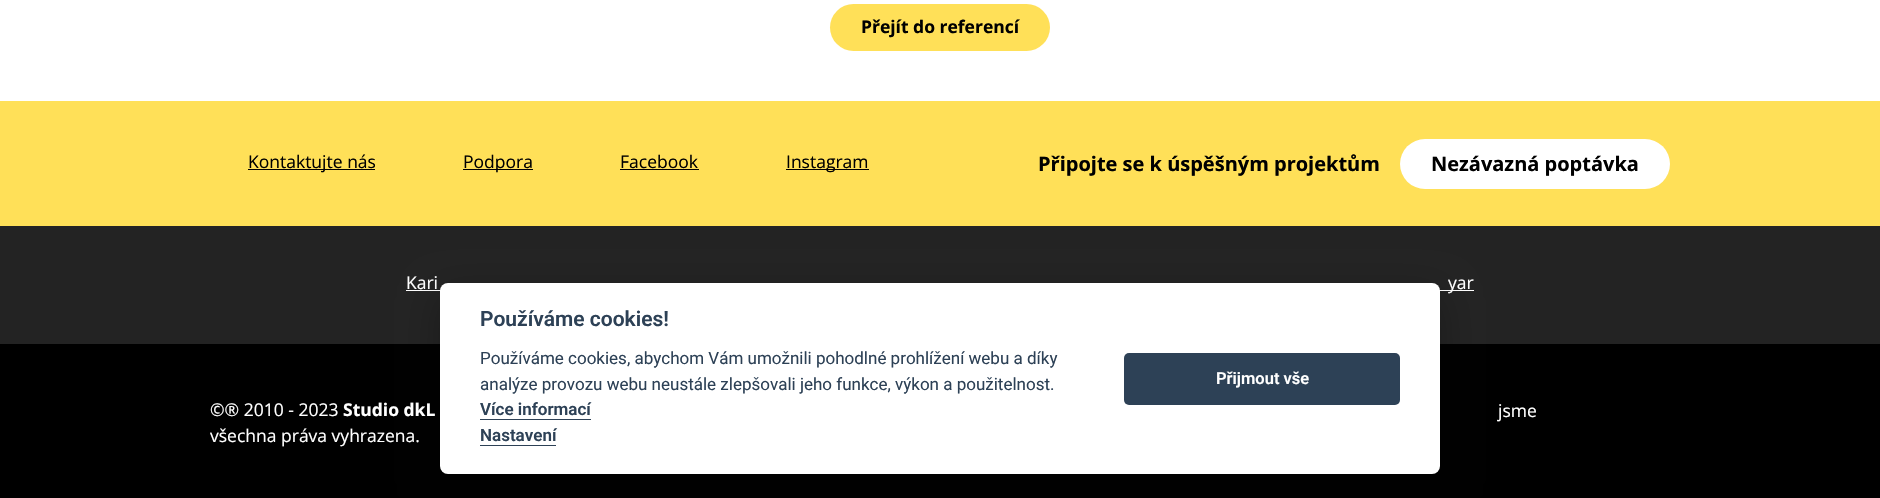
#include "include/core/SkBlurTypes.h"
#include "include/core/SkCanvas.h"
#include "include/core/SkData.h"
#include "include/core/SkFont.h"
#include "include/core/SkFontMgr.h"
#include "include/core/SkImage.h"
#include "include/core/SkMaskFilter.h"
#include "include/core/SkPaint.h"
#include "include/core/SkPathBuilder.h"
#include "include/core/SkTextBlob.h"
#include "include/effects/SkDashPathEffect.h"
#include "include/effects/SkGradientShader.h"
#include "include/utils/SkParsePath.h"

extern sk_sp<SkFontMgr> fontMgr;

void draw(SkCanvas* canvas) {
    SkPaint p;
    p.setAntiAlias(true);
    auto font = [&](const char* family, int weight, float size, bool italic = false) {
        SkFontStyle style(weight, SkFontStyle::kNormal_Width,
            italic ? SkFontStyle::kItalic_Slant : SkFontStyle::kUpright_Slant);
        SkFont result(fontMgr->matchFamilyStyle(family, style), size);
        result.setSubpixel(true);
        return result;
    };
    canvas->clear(0xFFFFFFFF);
    p.setColor(0xFFFFE058);
    canvas->drawRoundRect(SkRect::MakeLTRB(830, 4, 1050, 51), 23.5f, 23.5f, p);
    auto font1 = font("Open Sans", 700, 17.5f);
    p.setColor(0xFF000000);
    canvas->drawString("Přejít do referencí", 861, 33, font1, p);
    p.setColor(0xFFFFE058);
    canvas->drawRect(SkRect::MakeLTRB(0, 101, 1880, 226), p);
    p.setColor(0xFF000000);
    canvas->drawRect(SkRect::MakeLTRB(248, 169, 375, 170), p);
    auto font2 = font("Open Sans", 400, 17.5f);
    canvas->drawString("Kontaktujte nás", 248, 168, font2, p);
    canvas->drawRect(SkRect::MakeLTRB(463, 169, 533, 170), p);
    canvas->drawString("Podpora", 463, 168, font2, p);
    canvas->drawString("Facebook", 620, 168, font2, p);
    canvas->drawRect(SkRect::MakeLTRB(620, 169, 699, 170), p);
    canvas->drawRect(SkRect::MakeLTRB(786, 169, 869, 170), p);
    canvas->drawString("Instagram", 786, 168, font2, p);
    auto font3 = font("Open Sans", 700, 20);
    canvas->drawString("Připojte se k úspěšným projektům", 1038, 171, font3, p);
    p.setColor(0xFFFFFFFF);
    canvas->drawRoundRect(SkRect::MakeLTRB(1400, 139, 1670, 189), 25, 25, p);
    p.setColor(0xFF000000);
    canvas->drawString("Nezávazná poptávka", 1431, 171, font3, p);
    p.setColor(0xFF232323);
    canvas->drawRect(SkRect::MakeLTRB(0, 226, 1880, 344), p);
    p.setColor(0xFFFFFFFF);
    canvas->drawString("Kari", 406, 289, font2, p);
    canvas->drawRect(SkRect::MakeLTRB(406, 290, 441, 291), p);
    canvas->drawRect(SkRect::MakeLTRB(1439, 290, 1474, 291), p);
    canvas->drawString("yar", 1448, 289, font2, p);
    p.setColor(0xFF000000);
    canvas->drawRect(SkRect::MakeLTRB(0, 344, 1880, 498), p);
    p.setColor(0x47020203);
    p.setMaskFilter(SkMaskFilter::MakeBlur(kNormal_SkBlurStyle, 19));
    canvas->drawRoundRect(SkRect::MakeLTRB(440, 295, 1440, 486), 8, 8, p);
    p.setMaskFilter(nullptr);
    p.setColor(0xFFFFFFFF);
    canvas->drawRoundRect(SkRect::MakeLTRB(440, 283, 1440, 474), 8, 8, p);
    auto font4 = font("Roboto", 600, 21);
    p.setColor(0xFF2D4156);
    canvas->drawString("Používáme cookies!", 480, 326, font4, p);
    auto font5 = font("Roboto", 400, 17);
    canvas->drawString("Používáme cookies, abychom Vám umožnili pohodlné prohlížení webu a díky", 480, 364, font5, p);
    canvas->drawString("analýze provozu webu neustále zlepšovali jeho funkce, výkon a použitelnost.", 480, 390, font5, p);
    auto font6 = font("Roboto", 600, 17);
    canvas->drawString("Více informací", 480, 415, font6, p);
    canvas->drawRect(SkRect::MakeLTRB(480, 419, 591, 420), p);
    canvas->drawString("Nastavení", 480, 441, font6, p);
    canvas->drawRect(SkRect::MakeLTRB(480, 445, 556, 446), p);
    canvas->drawRoundRect(SkRect::MakeLTRB(1124, 353, 1400, 405), 5, 5, p);
    auto font7 = font("Roboto", 600, 16.5f);
    p.setColor(0xFFFFFFFF);
    canvas->drawString("Přijmout vše", 1216, 384, font7, p);
    canvas->drawString("©® 2010 - 2023", 210, 416, font2, p);
    canvas->drawString("Studio dkL", 343, 416, font1, p);
    canvas->drawString("všechna práva vyhrazena.", 210, 442, font2, p);
    canvas->drawString("jsme", 1498, 417, font2, p);
}
